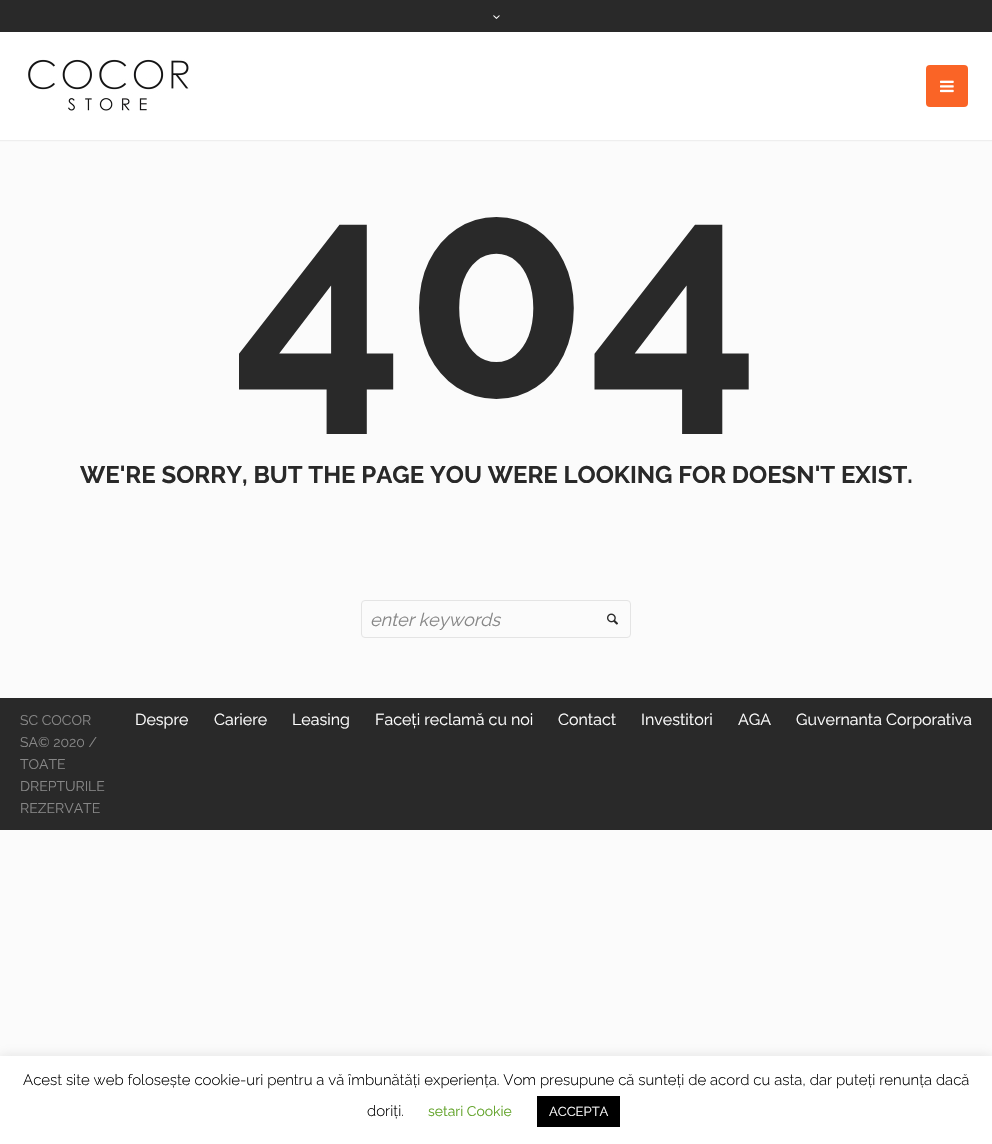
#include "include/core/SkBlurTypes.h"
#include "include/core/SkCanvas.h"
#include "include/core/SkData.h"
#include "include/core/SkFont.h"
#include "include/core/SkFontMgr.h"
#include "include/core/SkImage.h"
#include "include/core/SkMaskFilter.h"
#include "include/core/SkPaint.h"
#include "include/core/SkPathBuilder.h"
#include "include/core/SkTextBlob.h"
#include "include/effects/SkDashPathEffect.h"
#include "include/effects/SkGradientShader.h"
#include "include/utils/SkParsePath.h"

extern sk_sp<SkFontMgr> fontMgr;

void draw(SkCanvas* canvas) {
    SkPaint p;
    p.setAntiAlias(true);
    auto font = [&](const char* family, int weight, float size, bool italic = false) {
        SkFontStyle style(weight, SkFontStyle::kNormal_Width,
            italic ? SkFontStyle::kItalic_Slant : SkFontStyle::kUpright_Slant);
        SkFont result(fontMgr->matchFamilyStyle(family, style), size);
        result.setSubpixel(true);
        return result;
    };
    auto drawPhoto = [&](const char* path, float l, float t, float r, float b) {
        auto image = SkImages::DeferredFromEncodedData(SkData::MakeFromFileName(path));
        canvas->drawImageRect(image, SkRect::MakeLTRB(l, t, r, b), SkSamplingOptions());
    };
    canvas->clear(0xFFFBFBFB);
    p.setColor(0x0D000000);
    p.setMaskFilter(SkMaskFilter::MakeBlur(kNormal_SkBlurStyle, 0.5f));
    canvas->drawRect(SkRect::MakeLTRB(0, 1, 992, 141), p);
    p.setMaskFilter(nullptr);
    p.setColor(0xFF292929);
    canvas->drawRect(SkRect::MakeLTRB(0, 0, 992, 32), p);
    drawPhoto("media/1.png", 493, 15, 500, 19);
    p.setColor(0xFFFFFFFF);
    canvas->drawRect(SkRect::MakeLTRB(0, 32, 992, 140), p);
    drawPhoto("media/2.png", 28, 59, 189, 111);
    p.setColor(0xFFFA6426);
    canvas->drawRoundRect(SkRect::MakeLTRB(926, 65, 968, 107), 4, 4, p);
    drawPhoto("media/3.png", 940, 80, 954, 93);
    auto font1 = font("Raleway", 700, 300);
    p.setColor(0xFF292929);
    canvas->drawString("404", 233, 396, font1, p);
    auto font2 = font("Raleway", 700, 24);
    canvas->drawString("WE'RE SORRY, BUT THE PAGE YOU WERE LOOKING FOR DOESN'T EXIST.", 80, 483, font2, p);
    p.setStyle(SkPaint::kStroke_Style);
    p.setStrokeWidth(1);
    p.setColor(0xFFE4E4E4);
    canvas->drawRoundRect(SkRect::MakeLTRB(361.5f, 600.5f, 630.5f, 637.5f), 3.5f, 3.5f, p);
    auto font3 = font("Raleway", 400, 18, true);
    p.setStyle(SkPaint::kFill_Style);
    p.setColor(0xFF878787);
    canvas->drawString("enter keywords", 370, 626, font3, p);
    drawPhoto("media/4.png", 607, 613, 618, 625);
    p.setColor(0xFF292929);
    canvas->drawRect(SkRect::MakeLTRB(0, 698, 992, 830), p);
    auto font4 = font("Raleway", 400, 14);
    p.setColor(0xFF878787);
    {
        const struct { const char* s; float x, y; } items[] = {
            {"SC COCOR", 20, 725},
            {"SA© 2020 /", 20, 747},
            {"TOATE", 20, 769},
            {"DREPTURILE", 20, 791},
            {"REZERVATE", 20, 813},
        };
        for (auto [s, x, y] : items) {
            canvas->drawString(s, x, y, font4, p);
        }
    }
    auto font5 = font("Raleway", 400, 16);
    p.setColor(0xFFFFFFFF);
    {
        const struct { const char* s; float x, y; } items[] = {
            {"Despre", 135, 725},
            {"Cariere", 214, 725},
            {"Leasing", 292, 725},
            {"Faceți reclamă cu noi", 375, 725},
            {"Contact", 558, 725},
            {"Investitori", 641, 725},
            {"AGA", 738, 725},
            {"Guvernanta Corporativa", 796, 725},
        };
        for (auto [s, x, y] : items) {
            canvas->drawString(s, x, y, font5, p);
        }
    }
    p.setColor(0x4DACABAB);
    p.setMaskFilter(SkMaskFilter::MakeBlur(kNormal_SkBlurStyle, 5));
    canvas->drawRect(SkRect::MakeLTRB(0, 1055, 992, 1143), p);
    p.setMaskFilter(nullptr);
    p.setColor(0xFFFFFFFF);
    canvas->drawRect(SkRect::MakeLTRB(0, 1056, 992, 1144), p);
    auto font6 = font("Raleway", 300, 15);
    p.setColor(0xFF000000);
    canvas->drawString("Acest site web folosește cookie-uri pentru a vă îmbunătăți experiența. Vom presupune că sunteți de acord cu asta, dar puteți renunța dacă", 23, 1085, font6, p);
    canvas->drawString("doriți.", 367, 1116, font6, p);
    p.setColor(0xFF62A329);
    canvas->drawString("setari Cookie", 428, 1116, font4, p);
    p.setColor(0xFF000000);
    canvas->drawRect(SkRect::MakeLTRB(537, 1096, 620, 1127), p);
    auto font7 = font("Raleway", 400, 13);
    p.setColor(0xFFFFFFFF);
    canvas->drawString("ACCEPTA", 549, 1116, font7, p);
}
